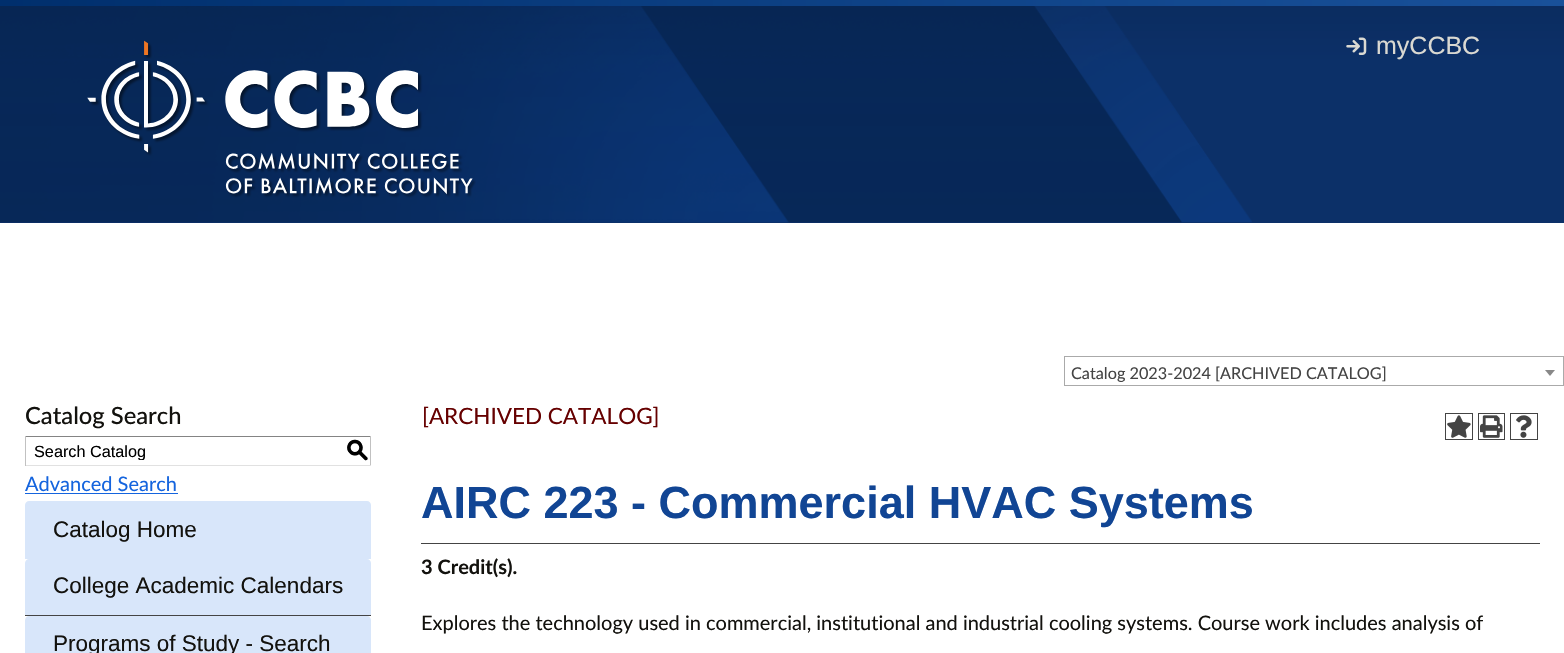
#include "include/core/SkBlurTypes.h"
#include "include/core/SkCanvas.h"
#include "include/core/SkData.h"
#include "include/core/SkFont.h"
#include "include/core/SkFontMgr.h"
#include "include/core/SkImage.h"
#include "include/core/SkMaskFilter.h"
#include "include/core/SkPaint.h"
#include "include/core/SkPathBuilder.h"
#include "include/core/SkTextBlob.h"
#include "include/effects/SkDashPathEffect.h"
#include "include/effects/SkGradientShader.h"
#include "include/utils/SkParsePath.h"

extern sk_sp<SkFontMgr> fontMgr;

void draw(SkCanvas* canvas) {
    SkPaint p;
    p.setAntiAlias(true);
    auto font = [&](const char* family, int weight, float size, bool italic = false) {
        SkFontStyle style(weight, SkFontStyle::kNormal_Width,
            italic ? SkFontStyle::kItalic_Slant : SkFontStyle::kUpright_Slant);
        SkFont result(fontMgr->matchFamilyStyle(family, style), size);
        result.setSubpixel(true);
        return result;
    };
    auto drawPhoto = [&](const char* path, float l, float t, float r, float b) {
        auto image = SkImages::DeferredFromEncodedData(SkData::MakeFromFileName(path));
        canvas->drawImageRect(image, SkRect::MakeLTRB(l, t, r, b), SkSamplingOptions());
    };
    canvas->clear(0xFFFFFFFF);
    p.setColor(0xFF0C3068);
    canvas->drawRect(SkRect::MakeLTRB(0, 63, 1564, 223), p);
    {
        const SkColor colors[] = {0xFF0B2C5F, 0xFF0C3068};
        const float stops[] = {0, 1};
        const SkPoint ends[] = {{783, 0}, {783, 63}};
        p.setShader(SkGradientShader::MakeLinear(ends, colors, stops, 2, SkTileMode::kClamp));
        p.setAlpha(255);
    }
    canvas->drawRect(SkRect::MakeLTRB(0, 6, 1564, 63), p);
    drawPhoto("media/1.png", 0, 6, 1252, 223);
    {
        const SkColor colors[] = {0xFF002F6D, 0xFF19519A};
        const float stops[] = {0, 1};
        const SkPoint ends[] = {{0, 3.1f}, {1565, 3.1f}};
        p.setShader(SkGradientShader::MakeLinear(ends, colors, stops, 2, SkTileMode::kClamp));
        p.setAlpha(255);
    }
    canvas->drawRect(SkRect::MakeLTRB(0, 0, 1564, 6), p);
    drawPhoto("media/2.png", 87, 40, 476, 198);
    drawPhoto("media/3.png", 1346, 37, 1367, 55);
    auto font1 = font("Liberation Sans", 400, 25);
    p.setShader(nullptr);
    p.setColor(0xFFDAD9D2);
    canvas->drawString("myCCBC", 1376, 54, font1, p);
    p.setStyle(SkPaint::kStroke_Style);
    p.setStrokeWidth(1);
    p.setColor(0xFFAAAAAA);
    canvas->drawRect(SkRect::MakeLTRB(1064.5f, 356.5f, 1563.5f, 385.5f), p);
    auto font2 = font("Lato", 400, 16.25f);
    p.setStyle(SkPaint::kFill_Style);
    p.setColor(0xFF444444);
    canvas->drawString("Catalog 2023-2024 [ARCHIVED CATALOG]", 1071, 379, font2, p);
    p.setColor(0xFF888888);
    canvas->drawPath(SkPathBuilder().moveTo(1545, 370).lineTo(1555, 370).lineTo(1550, 376).close().detach(), p);
    auto font3 = font("Lato", 500, 23.75f);
    p.setColor(0xFF13120E);
    canvas->drawString("Catalog Search", 25, 424, font3, p);
    {
        const struct { float l, t, r, b; SkColor color; } items[] = {
            {25, 436, 371, 437, 0xFF848484},
            {370, 436, 371, 466, 0xFFC1C1C1},
            {25, 465, 371, 466, 0xFFE1E1E1},
            {25, 436, 26, 466, 0xFFC1C1C1},
        };
        for (auto [l, t, r, b, color] : items) {
            p.setColor(color);
            canvas->drawRect(SkRect::MakeLTRB(l, t, r, b), p);
        }
    }
    canvas->save();
    canvas->clipRect(SkRect::MakeLTRB(34, 441, 340, 460));
    auto font4 = font("Liberation Sans", 400, 16.25f);
    p.setColor(0xFF000000);
    canvas->drawString("Search Catalog", 34, 457, font4, p);
    canvas->restore();
    auto font5 = font("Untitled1", 500, 22.5f);
    canvas->drawString("S", 346, 457, font5, p);
    auto font6 = font("Lato", 400, 20);
    p.setColor(0xFF1464DE);
    canvas->drawString("Advanced Search", 25, 491, font6, p);
    canvas->drawRect(SkRect::MakeLTRB(25, 493, 178, 494), p);
    p.setColor(0xFFD8E6FA);
    canvas->drawPath(SkPathBuilder().moveTo(29, 501).lineTo(367, 501).cubicTo(369, 501, 371, 503, 371, 505).lineTo(371, 559).lineTo(25, 559).lineTo(25, 505).cubicTo(25, 503, 27, 501, 29, 501).close().detach(), p);
    auto font7 = font("Liberation Sans", 400, 22.5f);
    p.setColor(0xFF13120E);
    canvas->drawString("Catalog Home", 53, 537, font7, p);
    p.setColor(0xFFD8E6FA);
    canvas->drawPath(SkPathBuilder().moveTo(29, 559).lineTo(367, 559).cubicTo(369, 559, 371, 561, 371, 563).lineTo(371, 615).lineTo(25, 615).lineTo(25, 563).cubicTo(25, 561, 27, 559, 29, 559).close().detach(), p);
    p.setColor(0xFF13120E);
    canvas->drawString("College Academic Calendars", 53, 593, font7, p);
    p.setColor(0xFF444444);
    canvas->drawRect(SkRect::MakeLTRB(25, 615, 371, 616), p);
    p.setColor(0xFFD8E6FA);
    canvas->drawPath(SkPathBuilder().moveTo(29, 616).lineTo(367, 616).cubicTo(369, 616, 371, 618, 371, 620).lineTo(371, 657).lineTo(25, 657).lineTo(25, 620).cubicTo(25, 618, 27, 616, 29, 616).close().detach(), p);
    p.setColor(0xFF13120E);
    canvas->drawString("Programs of Study - Search", 53, 651, font7, p);
    auto font8 = font("Lato", 400, 22.5f);
    p.setColor(0xFF660000);
    canvas->drawString("[ARCHIVED CATALOG]", 422, 424, font8, p);
    p.setStyle(SkPaint::kStroke_Style);
    p.setColor(0xFF444444);
    canvas->drawRect(SkRect::MakeLTRB(1445.5f, 413.5f, 1472.5f, 439.5f), p);
    drawPhoto("media/4.png", 1447, 415, 1471, 438);
    canvas->drawRect(SkRect::MakeLTRB(1478.5f, 413.5f, 1504.5f, 439.5f), p);
    drawPhoto("media/5.png", 1480, 415, 1503, 438);
    canvas->drawRect(SkRect::MakeLTRB(1510.5f, 413.5f, 1537.5f, 439.5f), p);
    drawPhoto("media/6.png", 1516, 415, 1532, 438);
    auto font9 = font("Liberation Sans", 700, 45);
    p.setStyle(SkPaint::kFill_Style);
    p.setColor(0xFF114594);
    canvas->drawString("AIRC 223 - Commercial HVAC Systems", 421, 518, font9, p);
    p.setColor(0xFF444444);
    canvas->drawRect(SkRect::MakeLTRB(421, 543, 1540, 544), p);
    auto font10 = font("Lato", 700, 20);
    p.setColor(0xFF13120E);
    canvas->drawString("3 Credit(s).", 421, 574, font10, p);
    canvas->drawString("Explores the technology used in commercial, institutional and industrial cooling systems. Course work includes analysis of", 421, 630, font6, p);
}
